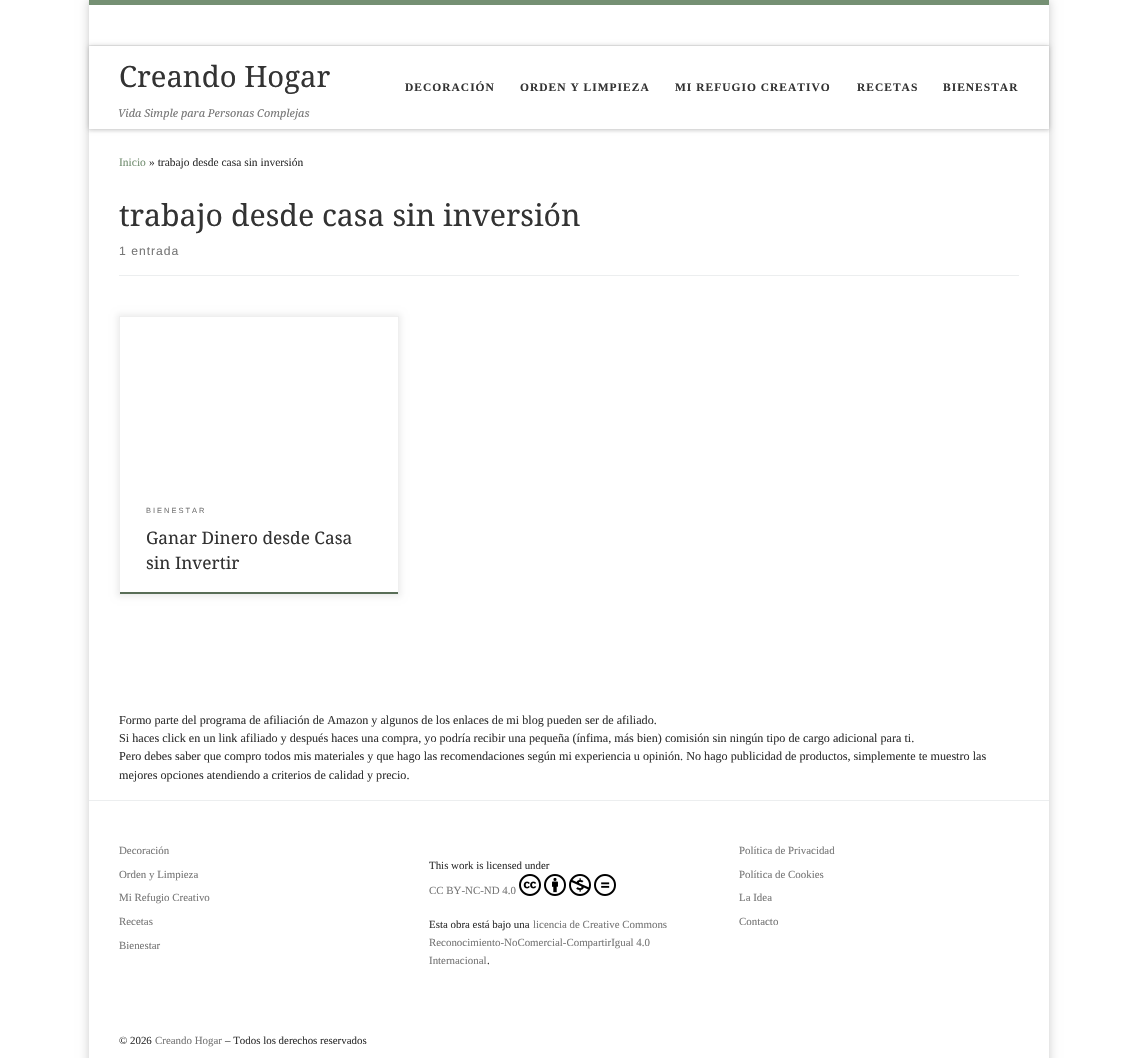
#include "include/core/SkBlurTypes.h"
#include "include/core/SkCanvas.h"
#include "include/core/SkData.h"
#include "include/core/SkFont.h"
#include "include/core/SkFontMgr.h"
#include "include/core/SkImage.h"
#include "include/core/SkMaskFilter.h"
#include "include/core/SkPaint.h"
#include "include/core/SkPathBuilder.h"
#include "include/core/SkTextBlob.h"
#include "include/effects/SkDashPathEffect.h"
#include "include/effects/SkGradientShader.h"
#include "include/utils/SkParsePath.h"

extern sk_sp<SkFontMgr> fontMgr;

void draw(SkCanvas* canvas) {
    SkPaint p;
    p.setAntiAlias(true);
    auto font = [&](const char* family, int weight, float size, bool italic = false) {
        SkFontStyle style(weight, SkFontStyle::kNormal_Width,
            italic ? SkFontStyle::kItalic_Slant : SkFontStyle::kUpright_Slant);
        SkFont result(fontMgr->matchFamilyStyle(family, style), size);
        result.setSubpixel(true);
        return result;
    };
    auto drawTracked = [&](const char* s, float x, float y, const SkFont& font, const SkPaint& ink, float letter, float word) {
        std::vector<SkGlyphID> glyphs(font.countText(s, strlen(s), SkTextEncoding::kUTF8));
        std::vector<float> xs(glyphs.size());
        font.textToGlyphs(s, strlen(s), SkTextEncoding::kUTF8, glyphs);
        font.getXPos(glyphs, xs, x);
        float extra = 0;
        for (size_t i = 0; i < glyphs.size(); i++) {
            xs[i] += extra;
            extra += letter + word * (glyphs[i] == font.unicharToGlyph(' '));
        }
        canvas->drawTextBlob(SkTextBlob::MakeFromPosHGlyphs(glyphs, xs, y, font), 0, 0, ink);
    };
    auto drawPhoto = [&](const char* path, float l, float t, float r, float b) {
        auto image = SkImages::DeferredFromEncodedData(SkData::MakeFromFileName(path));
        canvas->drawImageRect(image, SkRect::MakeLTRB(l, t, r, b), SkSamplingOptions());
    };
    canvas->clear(0xFFFFFFFF);
    canvas->save();
    canvas->clipPath(SkPathBuilder(SkPathFillType::kEvenOdd).moveTo(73, 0).lineTo(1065, 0).lineTo(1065, 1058).lineTo(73, 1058).close().moveTo(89, 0).lineTo(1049, 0).lineTo(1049, 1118).lineTo(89, 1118).close().detach(), true);
    p.setColor(0x33000000);
    p.setMaskFilter(SkMaskFilter::MakeBlur(kNormal_SkBlurStyle, 5));
    canvas->drawRect(SkRect::MakeLTRB(89, 0, 1049, 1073), p);
    p.setMaskFilter(nullptr);
    canvas->restore();
    canvas->save();
    canvas->clipPath(SkPathBuilder(SkPathFillType::kEvenOdd).moveTo(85, 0).lineTo(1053, 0).lineTo(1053, 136).lineTo(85, 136).close().moveTo(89, 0).lineTo(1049, 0).lineTo(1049, 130).lineTo(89, 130).close().detach(), true);
    p.setColor(0x14666666);
    p.setMaskFilter(SkMaskFilter::MakeBlur(kNormal_SkBlurStyle, 1));
    canvas->drawRect(SkRect::MakeLTRB(89, 2, 1049, 132), p);
    p.setMaskFilter(nullptr);
    canvas->restore();
    {
        const struct { float l, t, r, b; SkColor color; } items[] = {
            {89, 0, 1049, 5, 0xFF759073},
            {89, 45, 1049, 46, 0xFFECECEC},
            {89, 129, 1049, 130, 0xFFEFEFEF},
        };
        for (auto [l, t, r, b, color] : items) {
            p.setColor(color);
            canvas->drawRect(SkRect::MakeLTRB(l, t, r, b), p);
        }
    }
    canvas->save();
    canvas->clipPath(SkPathBuilder(SkPathFillType::kEvenOdd).moveTo(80, 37).lineTo(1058, 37).lineTo(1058, 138).lineTo(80, 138).close().moveTo(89, 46).lineTo(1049, 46).lineTo(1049, 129).lineTo(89, 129).close().detach(), true);
    p.setColor(0x33000000);
    p.setMaskFilter(SkMaskFilter::MakeBlur(kNormal_SkBlurStyle, 2.5f));
    canvas->drawRect(SkRect::MakeLTRB(89, 46, 1049, 129), p);
    p.setMaskFilter(nullptr);
    canvas->restore();
    auto font1 = font("Noto Serif", 400, 29.25f);
    p.setColor(0xFF333333);
    canvas->drawString("Creando Hogar", 119, 87, font1, p);
    auto font2 = font("Noto Serif", 400, 10.9f, true);
    p.setColor(0xFF777777);
    canvas->drawString("Vida Simple para Personas Complejas", 118, 117, font2, p);
    auto font3 = font("Liberation Serif", 700, 11.5f);
    p.setColor(0xFF333333);
    {
        const struct { const char* s; float x, y; } items[] = {
            {"DECORACIÓN", 405, 91},
            {"ORDEN Y LIMPIEZA", 520, 91},
            {"MI REFUGIO CREATIVO", 675, 91},
            {"RECETAS", 857, 91},
            {"BIENESTAR", 943, 91},
        };
        for (auto [s, x, y] : items) {
            drawTracked(s, x, y, font3, p, 1, 0);
        }
    }
    auto font4 = font("Liberation Serif", 400, 11.5f);
    p.setColor(0xFF759073);
    canvas->drawString("Inicio", 119, 166, font4, p);
    p.setColor(0xFF333333);
    canvas->drawString("» trabajo desde casa sin inversión", 149, 166, font4, p);
    auto font5 = font("Noto Serif", 400, 30.25f);
    canvas->drawString("trabajo desde casa sin inversión", 119, 226, font5, p);
    auto font6 = font("Liberation Sans", 400, 12.15f);
    p.setColor(0xFF777777);
    drawTracked("1 entrada", 119, 255, font6, p, 1, 0);
    p.setColor(0xFFECEEEF);
    canvas->drawRect(SkRect::MakeLTRB(119, 275, 1019, 276), p);
    canvas->save();
    canvas->clipPath(SkPathBuilder(SkPathFillType::kEvenOdd).moveTo(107, 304).lineTo(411, 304).lineTo(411, 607).lineTo(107, 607).close().moveTo(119, 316).lineTo(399, 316).lineTo(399, 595).lineTo(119, 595).close().detach(), true);
    p.setColor(0x12000000);
    p.setMaskFilter(SkMaskFilter::MakeBlur(kNormal_SkBlurStyle, 3));
    canvas->drawRect(SkRect::MakeLTRB(117, 314, 401, 597), p);
    p.setMaskFilter(nullptr);
    canvas->restore();
    p.setColor(0xFF596E57);
    canvas->drawRect(SkRect::MakeLTRB(119, 592, 399, 594), p);
    p.setStyle(SkPaint::kStroke_Style);
    p.setStrokeWidth(1);
    p.setColor(0xFFEFEFEF);
    canvas->drawRect(SkRect::MakeLTRB(119.5f, 316.5f, 398.5f, 594.5f), p);
    auto font7 = font("Liberation Sans", 400, 7.5f);
    p.setStyle(SkPaint::kFill_Style);
    p.setColor(0xFF777777);
    drawTracked("BIENESTAR", 146, 513, font7, p, 2, 0);
    auto font8 = font("Noto Serif", 400, 17.25f);
    p.setColor(0xFF333333);
    canvas->drawString("Ganar Dinero desde Casa", 146, 544, font8, p);
    canvas->drawString("sin Invertir", 146, 569, font8, p);
    auto font9 = font("Liberation Serif", 400, 12.15f);
    {
        const struct { const char* s; float x, y; } items[] = {
            {"Formo parte del programa de afiliación de Amazon y algunos de los enlaces de mi blog pueden ser de afiliado.", 119, 724},
            {"Si haces click en un link afiliado y después haces una compra, yo podría recibir una pequeña (ínfima, más bien) comisión sin ningún tipo de cargo adicional para ti.", 119, 742},
            {"Pero debes saber que compro todos mis materiales y que hago las recomendaciones según mi experiencia u opinión. No hago publicidad de productos, simplemente te muestro las", 119, 760},
            {"mejores opciones atendiendo a criterios de calidad y precio.", 119, 779},
        };
        for (auto [s, x, y] : items) {
            canvas->drawString(s, x, y, font9, p);
        }
    }
    p.setColor(0xFFECEEEF);
    canvas->drawRect(SkRect::MakeLTRB(89, 800, 1049, 801), p);
    auto font10 = font("Liberation Serif", 400, 10.9f);
    p.setColor(0xFF777777);
    {
        const struct { const char* s; float x, y; } items[] = {
            {"Decoración", 119, 854},
            {"Orden y Limpieza", 119, 878},
            {"Mi Refugio Creativo", 119, 901},
            {"Recetas", 119, 925},
            {"Bienestar", 119, 949},
        };
        for (auto [s, x, y] : items) {
            canvas->drawString(s, x, y, font10, p);
        }
    }
    p.setColor(0xFF333333);
    canvas->drawString("This work is licensed under", 429, 869, font10, p);
    p.setColor(0xFF777777);
    canvas->drawString("CC BY-NC-ND 4.0", 429, 894, font10, p);
    drawPhoto("media/1.png", 519, 874, 541, 896);
    drawPhoto("media/2.png", 544, 874, 566, 896);
    drawPhoto("media/3.png", 569, 874, 591, 896);
    drawPhoto("media/4.png", 594, 874, 616, 896);
    p.setColor(0xFF333333);
    canvas->drawString("Esta obra está bajo una", 429, 928, font10, p);
    p.setColor(0xFF777777);
    {
        const struct { const char* s; float x, y; } items[] = {
            {"licencia de Creative Commons", 533, 928},
            {"Reconocimiento-NoComercial-CompartirIgual 4.0", 429, 946},
            {"Internacional", 429, 964},
        };
        for (auto [s, x, y] : items) {
            canvas->drawString(s, x, y, font10, p);
        }
    }
    p.setColor(0xFF333333);
    canvas->drawString(".", 487, 964, font10, p);
    p.setColor(0xFF777777);
    {
        const struct { const char* s; float x, y; } items[] = {
            {"Política de Privacidad", 739, 854},
            {"Política de Cookies", 739, 878},
            {"La Idea", 739, 901},
            {"Contacto", 739, 925},
        };
        for (auto [s, x, y] : items) {
            canvas->drawString(s, x, y, font10, p);
        }
    }
    p.setColor(0xFF333333);
    canvas->drawString("© 2026", 119, 1044, font10, p);
    p.setColor(0xFF777777);
    canvas->drawString("Creando Hogar", 155, 1044, font10, p);
    p.setColor(0xFF333333);
    canvas->drawString("– Todos los derechos reservados", 225, 1044, font10, p);
}
